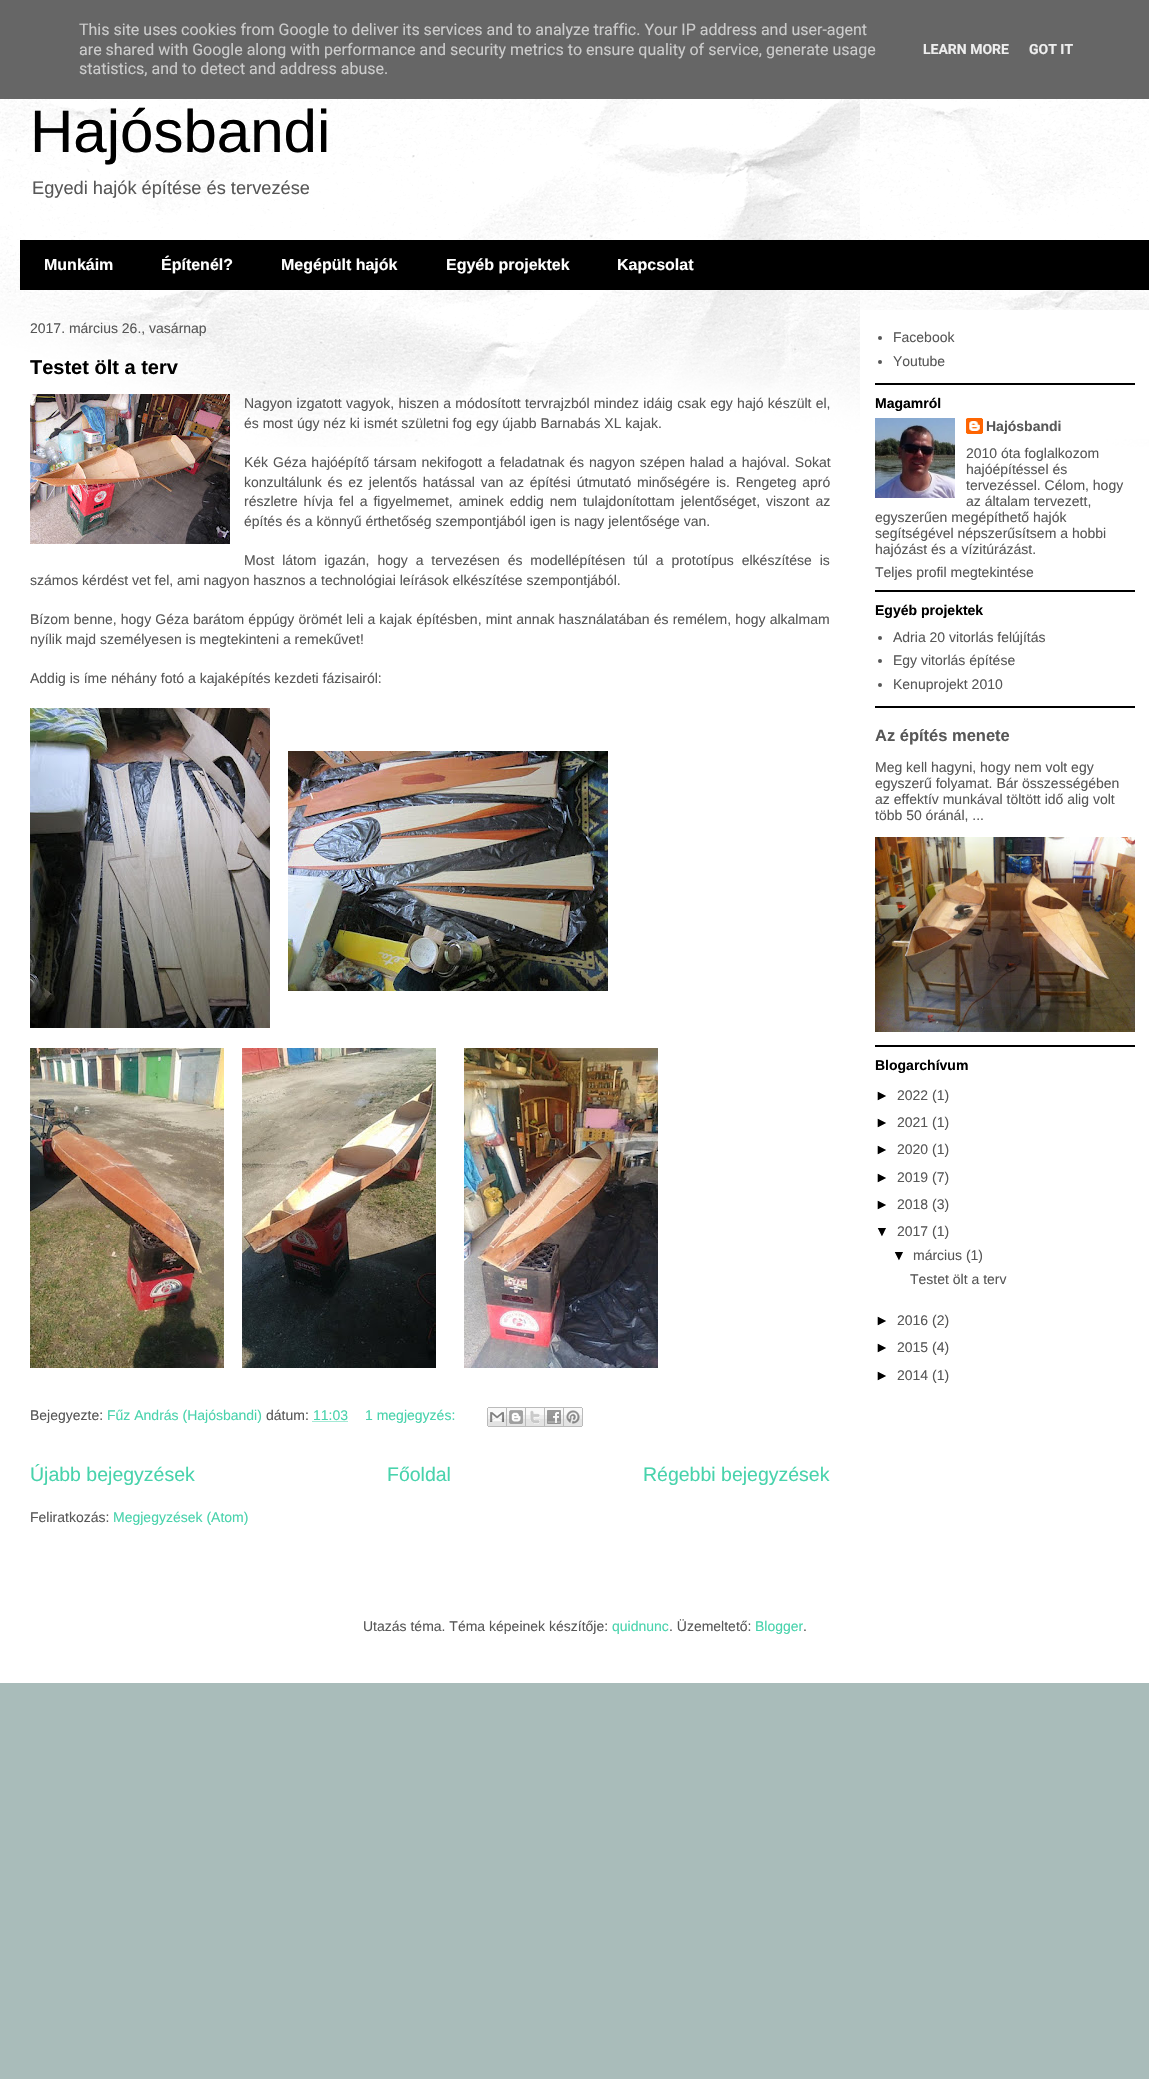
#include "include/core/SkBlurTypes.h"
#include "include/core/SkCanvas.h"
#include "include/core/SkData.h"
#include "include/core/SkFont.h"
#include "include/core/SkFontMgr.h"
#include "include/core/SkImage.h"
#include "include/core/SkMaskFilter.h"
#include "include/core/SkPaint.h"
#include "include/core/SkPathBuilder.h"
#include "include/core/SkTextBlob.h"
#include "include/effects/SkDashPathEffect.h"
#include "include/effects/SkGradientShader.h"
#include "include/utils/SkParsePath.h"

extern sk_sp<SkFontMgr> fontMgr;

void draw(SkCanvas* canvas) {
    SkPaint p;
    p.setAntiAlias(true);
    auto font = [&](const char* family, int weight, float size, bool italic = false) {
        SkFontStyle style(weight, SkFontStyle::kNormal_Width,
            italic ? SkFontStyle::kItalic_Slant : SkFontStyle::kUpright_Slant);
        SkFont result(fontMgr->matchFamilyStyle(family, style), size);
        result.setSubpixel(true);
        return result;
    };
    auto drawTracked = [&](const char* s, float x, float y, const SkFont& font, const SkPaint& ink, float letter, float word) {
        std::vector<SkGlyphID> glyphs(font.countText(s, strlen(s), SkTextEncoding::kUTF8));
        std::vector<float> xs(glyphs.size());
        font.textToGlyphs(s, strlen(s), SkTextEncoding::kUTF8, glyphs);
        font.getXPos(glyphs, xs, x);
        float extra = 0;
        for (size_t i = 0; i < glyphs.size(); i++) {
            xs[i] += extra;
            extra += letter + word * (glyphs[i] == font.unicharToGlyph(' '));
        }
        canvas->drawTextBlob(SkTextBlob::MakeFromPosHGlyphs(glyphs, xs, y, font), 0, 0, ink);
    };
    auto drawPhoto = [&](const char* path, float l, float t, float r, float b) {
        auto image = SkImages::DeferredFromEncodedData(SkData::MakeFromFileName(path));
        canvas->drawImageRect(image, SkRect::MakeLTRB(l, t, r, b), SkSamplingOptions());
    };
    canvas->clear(0xFFA9BCBA);
    p.setColor(0xFF666666);
    canvas->drawRect(SkRect::MakeLTRB(0, 0, 1149, 99), p);
    auto font1 = font("Roboto", 400, 16);
    p.setColor(0xFFCCCCCC);
    {
        const struct { const char* s; float x, y; } items[] = {
            {"This site uses cookies from Google to deliver its services and to analyze traffic. Your IP address and user-agent", 79, 35},
            {"are shared with Google along with performance and security metrics to ensure quality of service, generate usage", 79, 55},
            {"statistics, and to detect and address abuse.", 79, 74},
        };
        for (auto [s, x, y] : items) {
            canvas->drawString(s, x, y, font1, p);
        }
    }
    auto font2 = font("Roboto", 700, 14);
    p.setColor(0xFFEEEEEE);
    canvas->drawString("LEARN MORE", 923, 54, font2, p);
    canvas->drawString("GOT IT", 1029, 54, font2, p);
    p.setColor(0xFFFFFFFF);
    canvas->drawRect(SkRect::MakeLTRB(0, 99, 1149, 1683), p);
    drawPhoto("media/1.png", 0, 99, 1149, 447);
    auto font3 = font("Liberation Sans", 400, 60);
    p.setColor(0xFF000000);
    canvas->drawString("Hajósbandi", 30, 152, font3, p);
    auto font4 = font("Liberation Sans", 400, 18.25f);
    p.setColor(0xFF575757);
    canvas->drawString("Egyedi hajók építése és tervezése", 32, 194, font4, p);
    p.setColor(0xFF000000);
    canvas->drawRect(SkRect::MakeLTRB(20, 240, 1149, 290), p);
    auto font5 = font("Liberation Sans", 700, 16);
    p.setColor(0xFFFFFFFF);
    {
        const struct { const char* s; float x, y; } items[] = {
            {"Munkáim", 44, 270},
            {"Építenél?", 161, 270},
            {"Megépült hajók", 281, 270},
            {"Egyéb projektek", 446, 270},
            {"Kapcsolat", 617, 270},
        };
        for (auto [s, x, y] : items) {
            canvas->drawString(s, x, y, font5, p);
        }
    }
    canvas->drawRect(SkRect::MakeLTRB(860, 310, 1149, 439), p);
    auto font6 = font("Liberation Sans", 400, 14);
    p.setColor(0xFF575757);
    canvas->drawString("2017. március 26., vasárnap", 30, 333, font6, p);
    auto font7 = font("Liberation Sans", 700, 20);
    p.setColor(0xFF000000);
    canvas->drawString("Testet ölt a terv", 30, 374, font7, p);
    drawPhoto("media/2.png", 30, 394, 230, 544);
    p.setColor(0xFF575757);
    drawTracked("Nagyon izgatott vagyok, hiszen a módosított tervrajzból mindez idáig csak egy hajó készült el,", 244, 408, font6, p, 0, 0.4f);
    canvas->drawString("és most úgy néz ki ismét születni fog egy újabb Barnabás XL kajak.", 244, 428, font6, p);
    drawTracked("Kék Géza hajóépítő társam nekifogott a feladatnak és nagyon szépen halad a hajóval. Sokat", 244, 467, font6, p, 0, 1);
    drawTracked("konzultálunk és ez jelentős hatással van az építési útmutató minőségére is. Rengeteg apró", 244, 487, font6, p, 0, 1.9f);
    drawTracked("részletre hívja fel a figyelmemet, aminek eddig nem tulajdonítottam jelentőséget, viszont az", 244, 506, font6, p, 0, 2);
    canvas->drawString("építés és a könnyű érthetőség szempontjából igen is nagy jelentősége van.", 244, 526, font6, p);
    drawTracked("Most látom igazán, hogy a tervezésen és modellépítésen túl a prototípus elkészítése is", 244, 565, font6, p, 0, 4);
    canvas->drawString("számos kérdést vet fel, ami nagyon hasznos a technológiai leírások elkészítése szempontjából.", 30, 585, font6, p);
    drawTracked("Bízom benne, hogy Géza barátom éppúgy örömét leli a kajak építésben, mint annak használatában és remélem, hogy alkalmam", 30, 624, font6, p, 0, 0.25f);
    canvas->drawString("nyílik majd személyesen is megtekinteni a remekűvet!", 30, 644, font6, p);
    canvas->drawString("Addig is íme néhány fotó a kajaképítés kezdeti fázisairól:", 30, 683, font6, p);
    drawPhoto("media/3.png", 30, 708, 270, 1028);
    drawPhoto("media/4.png", 288, 751, 608, 991);
    drawPhoto("media/5.png", 30, 1048, 224, 1368);
    drawPhoto("media/6.png", 242, 1048, 436, 1368);
    drawPhoto("media/7.png", 464, 1048, 658, 1368);
    canvas->drawString("Bejegyezte:", 30, 1420, font6, p);
    p.setColor(0xFF48D3AC);
    canvas->drawString("Fűz András (Hajósbandi)", 107, 1420, font6, p);
    p.setColor(0xFF575757);
    canvas->drawString("dátum:", 266, 1420, font6, p);
    p.setColor(0xFF48D3AC);
    canvas->drawString("11:03", 313, 1420, font6, p);
    p.setStyle(SkPaint::kStroke_Style);
    p.setStrokeWidth(1);
    p.setPathEffect(SkDashPathEffect::Make({{1, 1}}, 0));
    canvas->drawPath(SkPathBuilder().moveTo(312.5f, 1421.5f).lineTo(347.5f, 1421.5f).detach(), p);
    p.setPathEffect(nullptr);
    p.setStyle(SkPaint::kFill_Style);
    canvas->drawString("1 megjegyzés:", 365, 1420, font6, p);
    drawPhoto("media/8.png", 487, 1407, 507, 1427);
    drawPhoto("media/9.png", 507, 1407, 526, 1427);
    drawPhoto("media/10.png", 526, 1407, 545, 1427);
    drawPhoto("media/11.png", 545, 1407, 564, 1427);
    drawPhoto("media/12.png", 564, 1407, 583, 1427);
    auto font8 = font("Liberation Sans", 400, 19.5f);
    {
        const struct { const char* s; float x, y; } items[] = {
            {"Újabb bejegyzések", 30, 1481},
            {"Főoldal", 387, 1481},
            {"Régebbi bejegyzések", 643, 1481},
        };
        for (auto [s, x, y] : items) {
            canvas->drawString(s, x, y, font8, p);
        }
    }
    p.setColor(0xFF575757);
    canvas->drawString("Feliratkozás:", 30, 1522, font6, p);
    p.setColor(0xFF48D3AC);
    canvas->drawString("Megjegyzések (Atom)", 113, 1522, font6, p);
    p.setColor(0xFF000000);
    canvas->drawRect(SkRect::MakeLTRB(875, 383, 1135, 385), p);
    p.setColor(0xFF575757);
    canvas->drawCircle(880, 338, 2, p);
    canvas->drawString("Facebook", 893, 342, font6, p);
    canvas->drawCircle(880, 362, 2, p);
    canvas->drawString("Youtube", 893, 366, font6, p);
    p.setColor(0xFF000000);
    canvas->drawRect(SkRect::MakeLTRB(875, 590, 1135, 592), p);
    auto font9 = font("Liberation Sans", 700, 14);
    canvas->drawString("Magamról", 875, 408, font9, p);
    drawPhoto("media/13.png", 875, 418, 955, 498);
    drawPhoto("media/14.png", 966, 418, 983, 434);
    p.setColor(0xFF575757);
    canvas->drawString("Hajósbandi", 986, 431, font9, p);
    {
        const struct { const char* s; float x, y; } items[] = {
            {"2010 óta foglalkozom", 966, 458},
            {"hajóépítéssel és", 966, 474},
            {"tervezéssel. Célom, hogy", 966, 490},
            {"az általam tervezett,", 966, 506},
            {"egyszerűen megépíthető hajók", 875, 522},
            {"segítségével népszerűsítsem a hobbi", 875, 538},
            {"hajózást és a vízitúrázást.", 875, 554},
            {"Teljes profil megtekintése", 875, 577},
        };
        for (auto [s, x, y] : items) {
            canvas->drawString(s, x, y, font6, p);
        }
    }
    p.setColor(0xFF000000);
    canvas->drawRect(SkRect::MakeLTRB(875, 706, 1135, 708), p);
    canvas->drawString("Egyéb projektek", 875, 615, font9, p);
    p.setColor(0xFF575757);
    canvas->drawCircle(880, 638, 2, p);
    canvas->drawString("Adria 20 vitorlás felújítás", 893, 642, font6, p);
    canvas->drawCircle(880, 661, 2, p);
    canvas->drawString("Egy vitorlás építése", 893, 665, font6, p);
    canvas->drawCircle(880, 685, 2, p);
    canvas->drawString("Kenuprojekt 2010", 893, 689, font6, p);
    p.setColor(0xFF000000);
    canvas->drawRect(SkRect::MakeLTRB(875, 1045, 1135, 1047), p);
    auto font10 = font("Liberation Sans", 700, 16.5f);
    p.setColor(0xFF575757);
    canvas->drawString("Az építés menete", 875, 741, font10, p);
    {
        const struct { const char* s; float x, y; } items[] = {
            {"Meg kell hagyni, hogy nem volt egy", 875, 772},
            {"egyszerű folyamat. Bár összességében", 875, 788},
            {"az effektív munkával töltött idő alig volt", 875, 804},
            {"több 50 óránál, ...", 875, 820},
        };
        for (auto [s, x, y] : items) {
            canvas->drawString(s, x, y, font6, p);
        }
    }
    drawPhoto("media/15.png", 875, 837, 1135, 1032);
    p.setColor(0xFF000000);
    canvas->drawString("Blogarchívum", 875, 1070, font9, p);
    canvas->drawString("►", 875, 1100, font6, p);
    p.setColor(0xFF575757);
    canvas->drawString("2022 (1)", 897, 1100, font6, p);
    p.setColor(0xFF000000);
    canvas->drawString("►", 875, 1127, font6, p);
    p.setColor(0xFF575757);
    canvas->drawString("2021 (1)", 897, 1127, font6, p);
    p.setColor(0xFF000000);
    canvas->drawString("►", 875, 1154, font6, p);
    p.setColor(0xFF575757);
    canvas->drawString("2020 (1)", 897, 1154, font6, p);
    p.setColor(0xFF000000);
    canvas->drawString("►", 875, 1182, font6, p);
    p.setColor(0xFF575757);
    canvas->drawString("2019 (7)", 897, 1182, font6, p);
    p.setColor(0xFF000000);
    canvas->drawString("►", 875, 1209, font6, p);
    p.setColor(0xFF575757);
    canvas->drawString("2018 (3)", 897, 1209, font6, p);
    p.setColor(0xFF000000);
    canvas->drawString("▼", 875, 1236, font6, p);
    p.setColor(0xFF575757);
    canvas->drawString("2017 (1)", 897, 1236, font6, p);
    p.setColor(0xFF000000);
    canvas->drawString("▼", 892, 1260, font6, p);
    p.setColor(0xFF575757);
    canvas->drawString("március (1)", 913, 1260, font6, p);
    canvas->drawString("Testet ölt a terv", 910, 1284, font6, p);
    p.setColor(0xFF000000);
    canvas->drawString("►", 875, 1325, font6, p);
    p.setColor(0xFF575757);
    canvas->drawString("2016 (2)", 897, 1325, font6, p);
    p.setColor(0xFF000000);
    canvas->drawString("►", 875, 1352, font6, p);
    p.setColor(0xFF575757);
    canvas->drawString("2015 (4)", 897, 1352, font6, p);
    p.setColor(0xFF000000);
    canvas->drawString("►", 875, 1380, font6, p);
    p.setColor(0xFF575757);
    canvas->drawString("2014 (1)", 897, 1380, font6, p);
    canvas->drawString("Utazás téma. Téma képeinek készítője:", 363, 1631, font6, p);
    p.setColor(0xFF48D3AC);
    canvas->drawString("quidnunc", 612, 1631, font6, p);
    p.setColor(0xFF575757);
    canvas->drawString(". Üzemeltető:", 669, 1631, font6, p);
    p.setColor(0xFF48D3AC);
    canvas->drawString("Blogger", 755, 1631, font6, p);
    p.setColor(0xFF575757);
    canvas->drawString(".", 803, 1631, font6, p);
}
